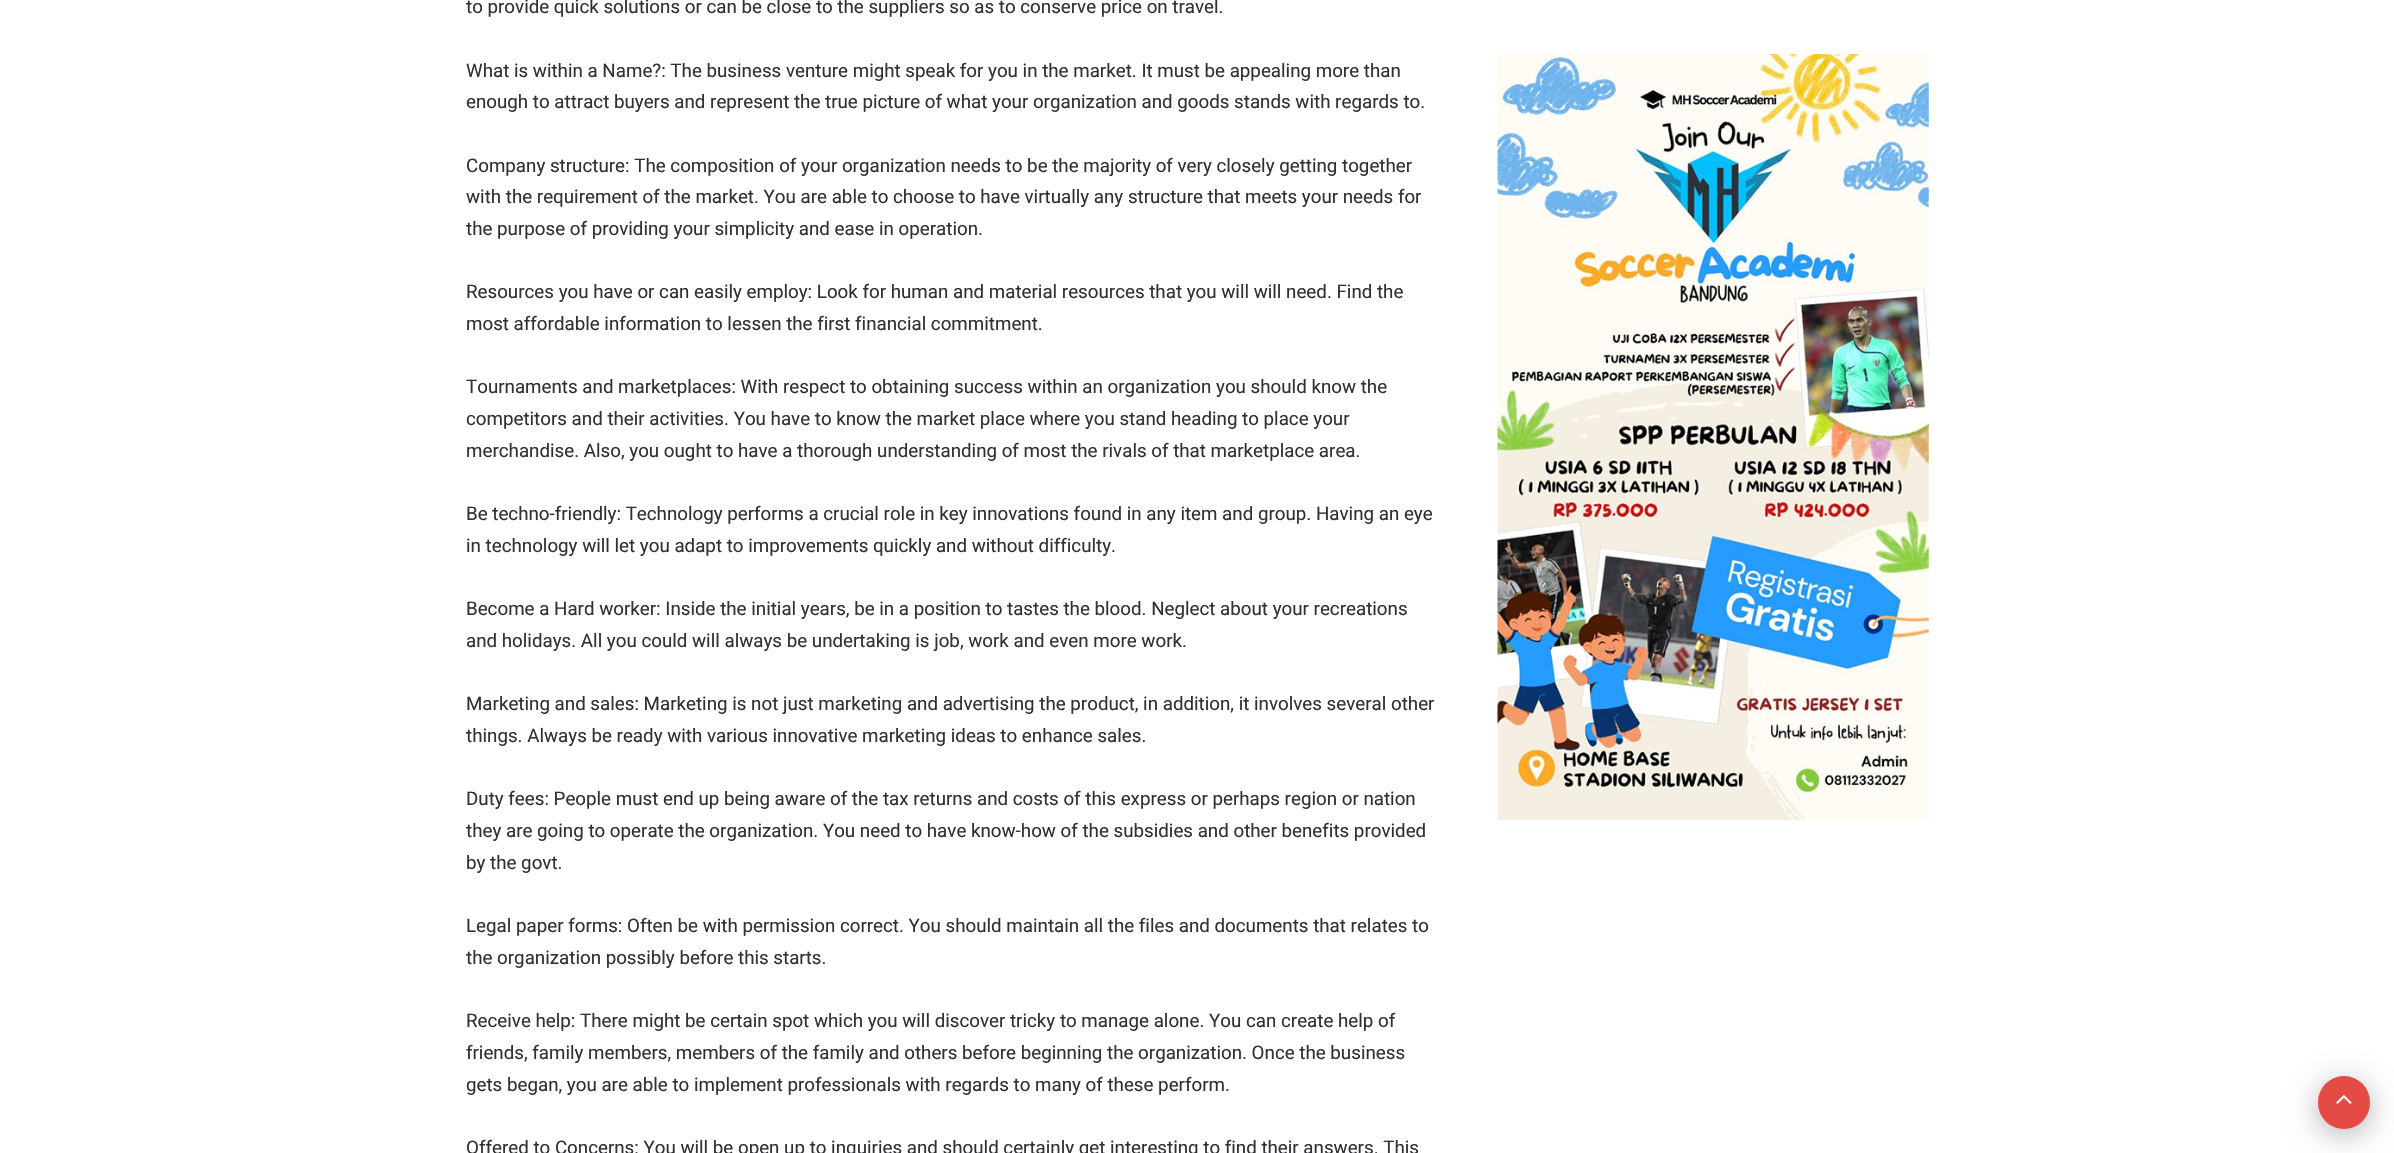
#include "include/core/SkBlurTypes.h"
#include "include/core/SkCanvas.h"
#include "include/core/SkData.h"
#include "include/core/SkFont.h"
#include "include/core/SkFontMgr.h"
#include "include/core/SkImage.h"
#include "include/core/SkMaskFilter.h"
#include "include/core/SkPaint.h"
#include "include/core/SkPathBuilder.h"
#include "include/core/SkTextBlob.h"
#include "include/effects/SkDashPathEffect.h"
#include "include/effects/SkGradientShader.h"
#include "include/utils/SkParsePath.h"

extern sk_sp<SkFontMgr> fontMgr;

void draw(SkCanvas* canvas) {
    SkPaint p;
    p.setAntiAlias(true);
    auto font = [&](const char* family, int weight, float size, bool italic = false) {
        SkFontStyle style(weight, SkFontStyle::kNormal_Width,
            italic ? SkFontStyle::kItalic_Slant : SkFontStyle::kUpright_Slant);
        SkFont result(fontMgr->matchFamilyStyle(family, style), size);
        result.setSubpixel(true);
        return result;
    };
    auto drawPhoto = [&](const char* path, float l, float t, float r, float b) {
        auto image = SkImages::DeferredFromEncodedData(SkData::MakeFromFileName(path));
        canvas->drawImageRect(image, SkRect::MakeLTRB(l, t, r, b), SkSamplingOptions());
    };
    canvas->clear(0xFFFFFFFF);
    auto font1 = font("Roboto", 400, 18.75f);
    p.setColor(0xFF2E3136);
    {
        const struct { const char* s; float x, y; } items[] = {
            {"to provide quick solutions or can be close to the suppliers so as to conserve price on travel.", 466, 13},
            {"What is within a Name?: The business venture might speak for you in the market. It must be appealing more than", 466, 77},
            {"enough to attract buyers and represent the true picture of what your organization and goods stands with regards to.", 466, 108},
            {"Company structure: The composition of your organization needs to be the majority of very closely getting together", 466, 172},
            {"with the requirement of the market. You are able to choose to have virtually any structure that meets your needs for", 466, 203},
            {"the purpose of providing your simplicity and ease in operation.", 466, 235},
            {"Resources you have or can easily employ: Look for human and material resources that you will will need. Find the", 466, 298},
            {"most affordable information to lessen the first financial commitment.", 466, 330},
            {"Tournaments and marketplaces: With respect to obtaining success within an organization you should know the", 466, 393},
            {"competitors and their activities. You have to know the market place where you stand heading to place your", 466, 425},
            {"merchandise. Also, you ought to have a thorough understanding of most the rivals of that marketplace area.", 466, 457},
            {"Be techno-friendly: Technology performs a crucial role in key innovations found in any item and group. Having an eye", 466, 520},
            {"in technology will let you adapt to improvements quickly and without difficulty.", 466, 552},
            {"Become a Hard worker: Inside the initial years, be in a position to tastes the blood. Neglect about your recreations", 466, 615},
            {"and holidays. All you could will always be undertaking is job, work and even more work.", 466, 647},
            {"Marketing and sales: Marketing is not just marketing and advertising the product, in addition, it involves several other", 466, 710},
            {"things. Always be ready with various innovative marketing ideas to enhance sales.", 466, 742},
            {"Duty fees: People must end up being aware of the tax returns and costs of this express or perhaps region or nation", 466, 805},
            {"they are going to operate the organization. You need to have know-how of the subsidies and other benefits provided", 466, 837},
            {"by the govt.", 466, 869},
            {"Legal paper forms: Often be with permission correct. You should maintain all the files and documents that relates to", 466, 932},
            {"the organization possibly before this starts.", 466, 964},
            {"Receive help: There might be certain spot which you will discover tricky to manage alone. You can create help of", 466, 1027},
            {"friends, family members, members of the family and others before beginning the organization. Once the business", 466, 1059},
            {"gets began, you are able to implement professionals with regards to many of these perform.", 466, 1091},
            {"Offered to Concerns: You will be open up to inquiries and should certainly get interesting to find their answers. This", 466, 1154},
        };
        for (auto [s, x, y] : items) {
            canvas->drawString(s, x, y, font1, p);
        }
    }
    drawPhoto("media/1.png", 1497, 54, 1929, 821);
    p.setColor(0x4D000000);
    p.setMaskFilter(SkMaskFilter::MakeBlur(kNormal_SkBlurStyle, 15.5f));
    canvas->drawRoundRect(SkRect::MakeLTRB(2318, 1083, 2370, 1135), 26, 26, p);
    p.setMaskFilter(nullptr);
    p.setColor(0xFFE44B45);
    canvas->drawRoundRect(SkRect::MakeLTRB(2318, 1076, 2370, 1129), 26, 26, p);
    drawPhoto("media/2.png", 2336, 1095, 2352, 1104);
}
